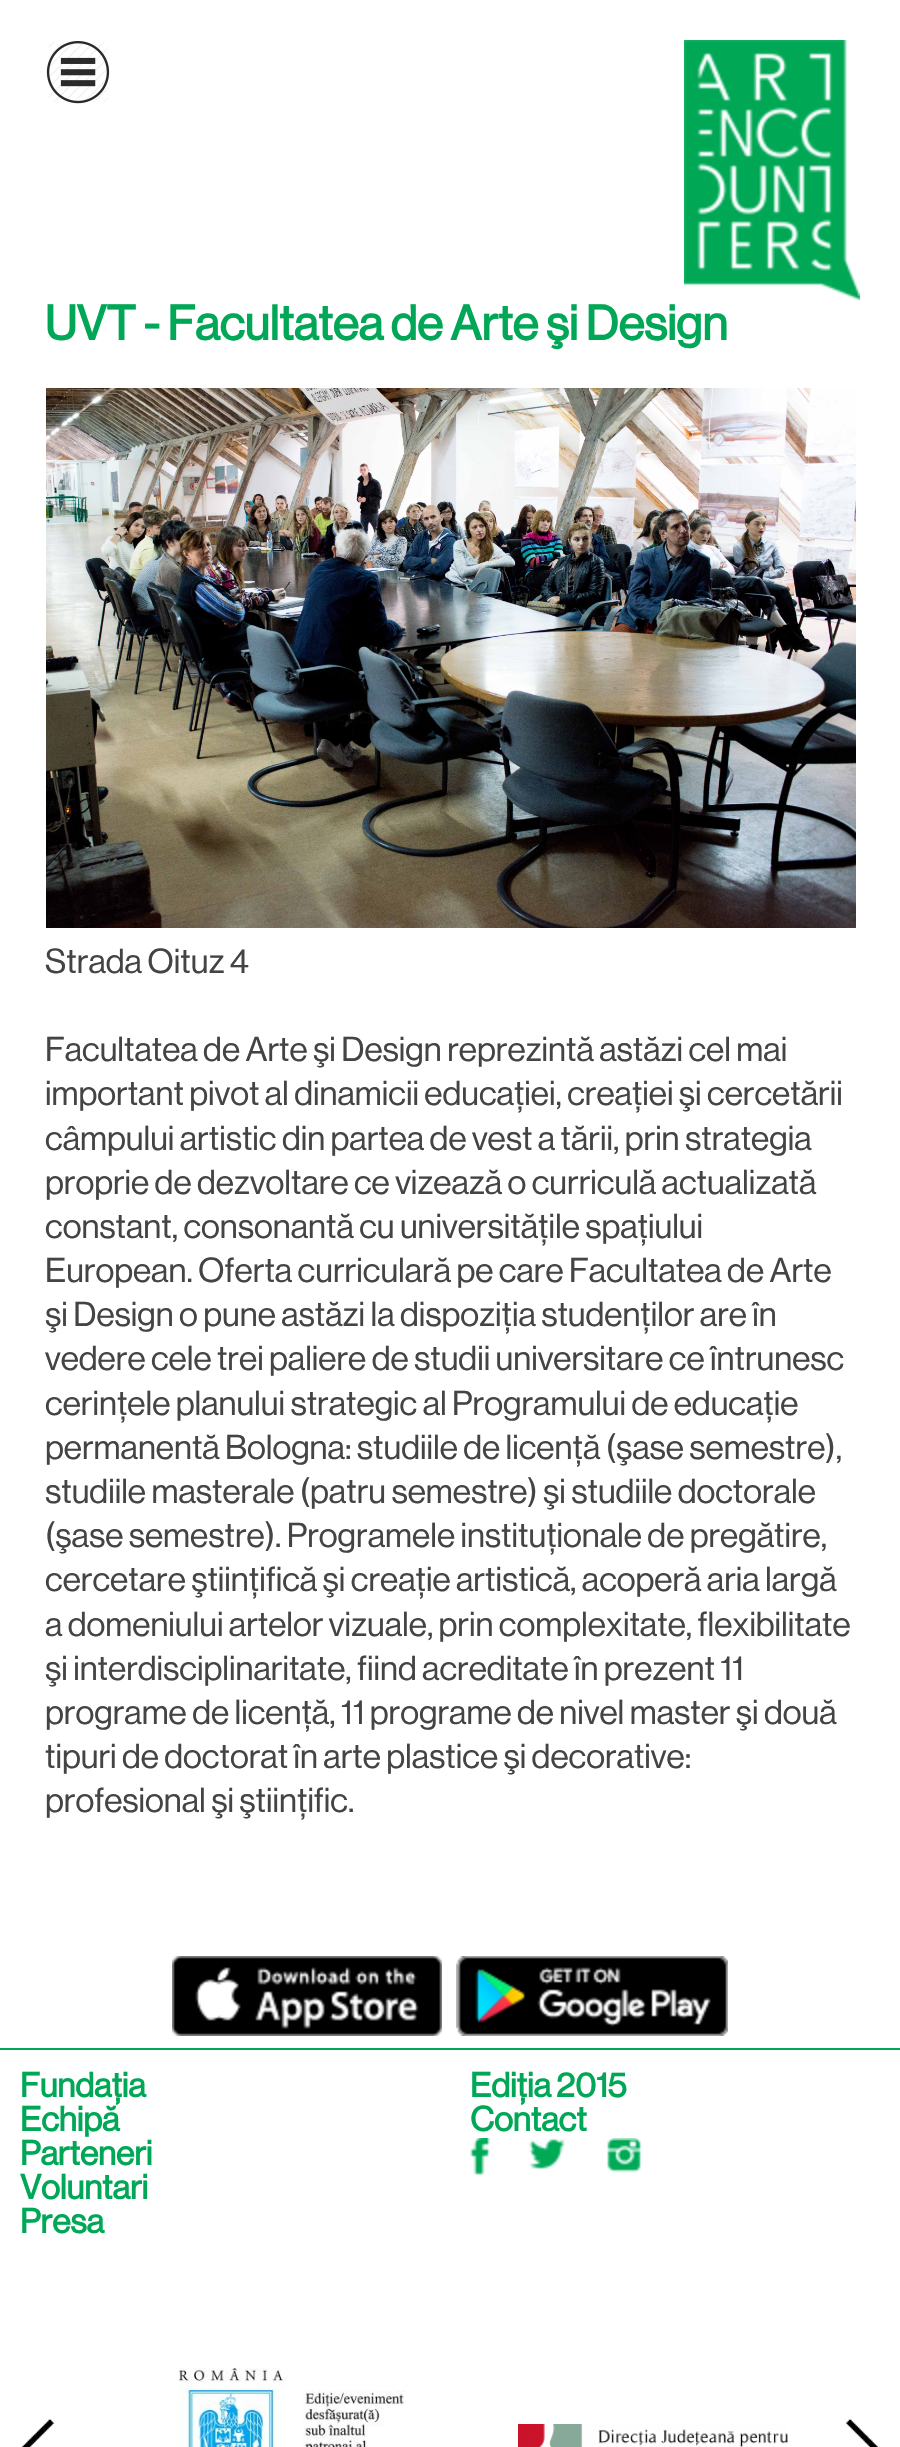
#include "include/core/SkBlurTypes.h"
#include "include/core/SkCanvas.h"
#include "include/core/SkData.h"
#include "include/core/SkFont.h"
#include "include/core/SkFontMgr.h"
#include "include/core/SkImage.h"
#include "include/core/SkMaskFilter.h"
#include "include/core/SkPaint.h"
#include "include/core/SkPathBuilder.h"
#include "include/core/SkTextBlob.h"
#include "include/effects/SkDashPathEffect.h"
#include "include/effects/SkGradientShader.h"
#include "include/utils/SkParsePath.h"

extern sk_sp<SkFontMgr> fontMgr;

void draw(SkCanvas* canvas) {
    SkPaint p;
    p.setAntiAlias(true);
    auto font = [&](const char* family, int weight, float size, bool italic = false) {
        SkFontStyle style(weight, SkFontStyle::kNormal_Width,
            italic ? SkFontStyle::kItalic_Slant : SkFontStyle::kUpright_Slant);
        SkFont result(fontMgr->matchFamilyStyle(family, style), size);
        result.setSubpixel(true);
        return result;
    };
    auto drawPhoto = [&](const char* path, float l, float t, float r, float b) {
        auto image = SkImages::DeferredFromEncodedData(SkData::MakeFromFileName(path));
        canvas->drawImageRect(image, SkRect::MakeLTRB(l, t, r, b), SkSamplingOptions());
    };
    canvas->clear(0xFFFFFFFF);
    drawPhoto("media/1.png", 46, 41, 110, 104);
    drawPhoto("media/2.png", 684, 40, 860, 300);
    auto font1 = font("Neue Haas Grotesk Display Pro", 700, 48);
    p.setColor(0xFF00A756);
    canvas->drawString("UVT - Facultatea de Arte şi Design", 45, 340, font1, p);
    drawPhoto("media/3.png", 46, 388, 856, 928);
    auto font2 = font("Neue Haas Grotesk Display Pro", 400, 34);
    p.setColor(0xFF444444);
    {
        const struct { const char* s; float x, y; } items[] = {
            {"Strada Oituz 4", 45, 973},
            {"Facultatea de Arte şi Design reprezintă astăzi cel mai", 45, 1061},
            {"important pivot al dinamicii educaţiei, creaţiei şi cercetării", 45, 1105},
            {"câmpului artistic din partea de vest a tării, prin strategia", 45, 1150},
            {"proprie de dezvoltare ce vizează o curriculă actualizată", 45, 1194},
            {"constant, consonantă cu universităţile spaţiului", 45, 1238},
            {"European. Oferta curriculară pe care Facultatea de Arte", 45, 1282},
            {"şi Design o pune astăzi la dispoziţia studenţilor are în", 45, 1326},
            {"vedere cele trei paliere de studii universitare ce întrunesc", 45, 1370},
            {"cerinţele planului strategic al Programului de educaţie", 45, 1415},
            {"permanentă Bologna: studiile de licenţă (şase semestre),", 45, 1459},
            {"studiile masterale (patru semestre) şi studiile doctorale", 45, 1503},
            {"(şase semestre). Programele instituţionale de pregătire,", 45, 1547},
            {"cercetare ştiinţifică şi creaţie artistică, acoperă aria largă", 45, 1591},
            {"a domeniului artelor vizuale, prin complexitate, flexibilitate", 45, 1636},
            {"şi interdisciplinaritate, fiind acreditate în prezent 11", 45, 1680},
            {"programe de licenţă, 11 programe de nivel master şi două", 45, 1724},
            {"tipuri de doctorat în arte plastice şi decorative:", 45, 1768},
            {"profesional şi ştiinţific.", 45, 1812},
        };
        for (auto [s, x, y] : items) {
            canvas->drawString(s, x, y, font2, p);
        }
    }
    drawPhoto("media/4.png", 172, 1956, 442, 2036);
    drawPhoto("media/5.png", 456, 1956, 728, 2036);
    p.setColor(0xFF00A756);
    canvas->drawRect(SkRect::MakeLTRB(0, 2048, 900, 2050), p);
    auto font3 = font("Neue Haas Grotesk Display Pro", 700, 34);
    {
        const struct { const char* s; float x, y; } items[] = {
            {"Fundaţia", 20, 2097},
            {"Echipă", 20, 2131},
            {"Parteneri", 20, 2165},
            {"Voluntari", 20, 2199},
            {"Presa", 20, 2233},
            {"Ediţia 2015", 470, 2097},
            {"Contact", 470, 2131},
        };
        for (auto [s, x, y] : items) {
            canvas->drawString(s, x, y, font3, p);
        }
    }
    drawPhoto("media/6.png", 470, 2138, 490, 2176);
    drawPhoto("media/7.png", 529, 2138, 565, 2170);
    drawPhoto("media/8.png", 606, 2138, 642, 2173);
    drawPhoto("media/9.png", 22, 2419, 54, 2447);
    drawPhoto("media/10.png", 178, 2368, 405, 2447);
    drawPhoto("media/11.png", 518, 2424, 788, 2447);
    drawPhoto("media/12.png", 846, 2419, 878, 2447);
}
